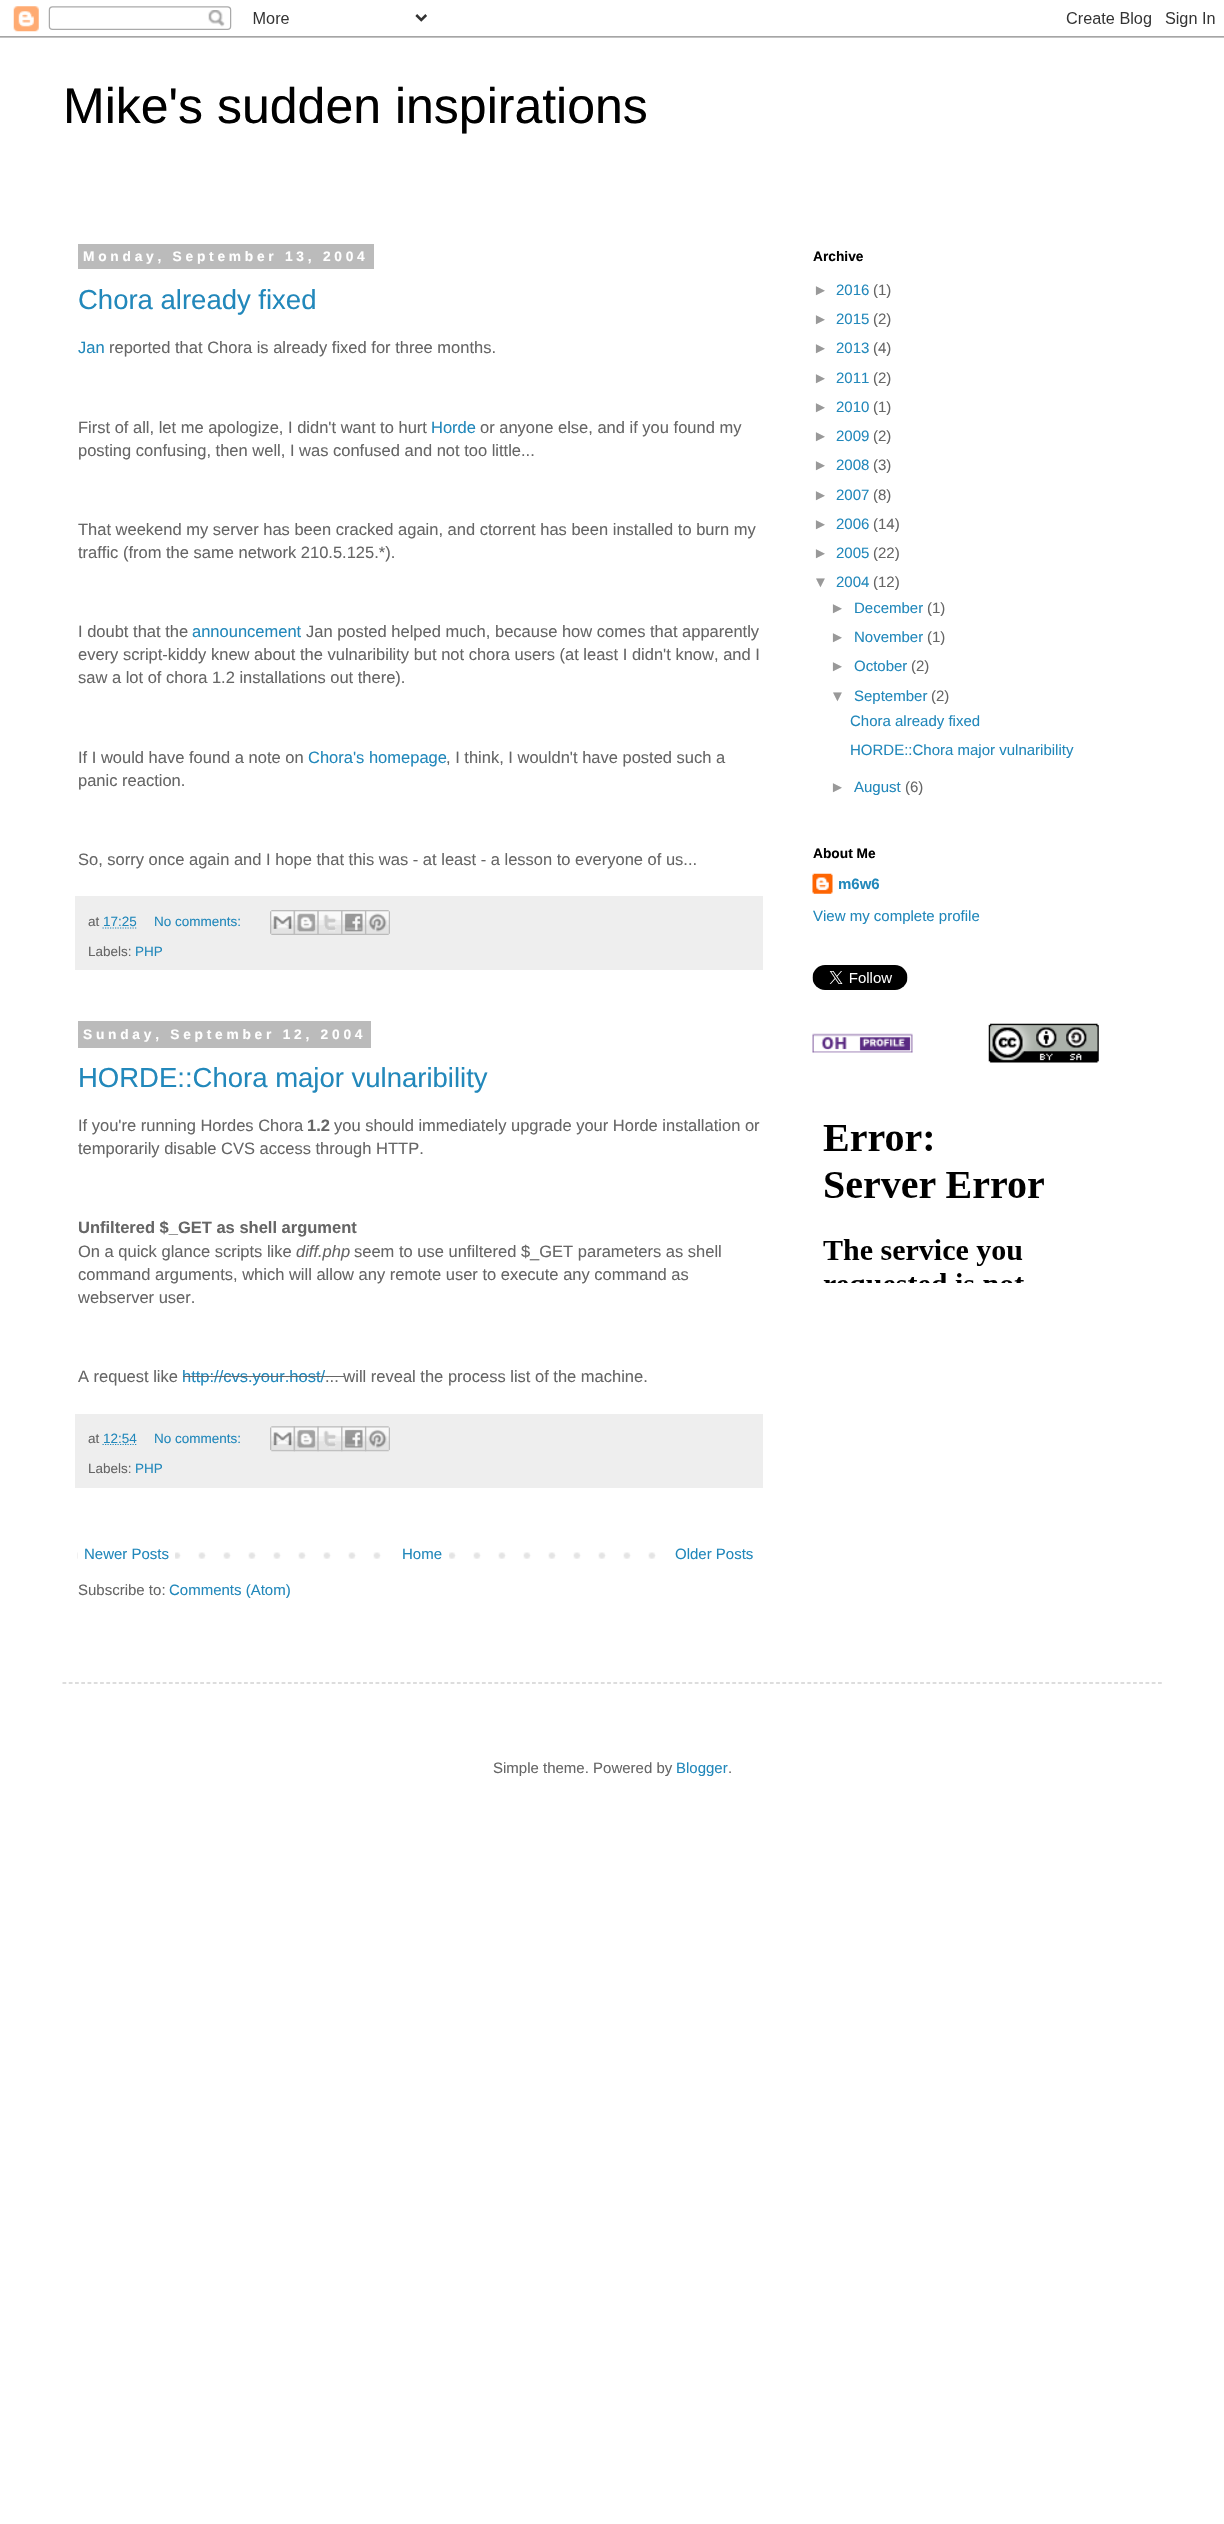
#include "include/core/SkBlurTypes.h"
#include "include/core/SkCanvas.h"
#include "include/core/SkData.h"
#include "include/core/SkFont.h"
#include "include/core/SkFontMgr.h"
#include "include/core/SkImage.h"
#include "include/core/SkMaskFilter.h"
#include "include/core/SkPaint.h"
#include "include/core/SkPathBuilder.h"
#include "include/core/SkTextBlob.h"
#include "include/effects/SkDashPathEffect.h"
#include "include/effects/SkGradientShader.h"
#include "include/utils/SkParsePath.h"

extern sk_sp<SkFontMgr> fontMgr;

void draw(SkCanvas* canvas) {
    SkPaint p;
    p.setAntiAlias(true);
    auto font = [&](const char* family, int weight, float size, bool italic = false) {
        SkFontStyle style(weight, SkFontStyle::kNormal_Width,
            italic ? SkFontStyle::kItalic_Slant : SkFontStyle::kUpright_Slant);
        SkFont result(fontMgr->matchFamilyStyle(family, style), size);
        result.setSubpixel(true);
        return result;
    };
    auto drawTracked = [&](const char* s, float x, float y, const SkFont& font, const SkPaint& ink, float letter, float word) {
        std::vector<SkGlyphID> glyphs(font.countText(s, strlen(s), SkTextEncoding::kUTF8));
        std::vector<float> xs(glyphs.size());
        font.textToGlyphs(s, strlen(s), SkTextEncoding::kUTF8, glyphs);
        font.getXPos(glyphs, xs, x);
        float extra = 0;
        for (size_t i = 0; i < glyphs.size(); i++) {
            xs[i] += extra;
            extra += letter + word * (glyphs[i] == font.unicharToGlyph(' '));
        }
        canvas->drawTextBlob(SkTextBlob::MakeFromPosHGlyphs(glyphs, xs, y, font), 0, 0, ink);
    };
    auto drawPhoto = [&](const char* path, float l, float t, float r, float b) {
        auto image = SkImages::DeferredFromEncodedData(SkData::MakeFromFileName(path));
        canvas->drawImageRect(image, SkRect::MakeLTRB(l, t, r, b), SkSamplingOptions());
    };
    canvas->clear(0xFFFFFFFF);
    drawPhoto("media/1.png", 0, 6, 1224, 38);
    auto font1 = font("Liberation Sans", 400, 50);
    p.setColor(0xFF000000);
    canvas->drawString("Mike's sudden inspirations", 63, 123, font1, p);
    p.setColor(0xFFBBBBBB);
    canvas->drawRect(SkRect::MakeLTRB(78, 244, 374, 269), p);
    auto font2 = font("Liberation Sans", 700, 13.75f);
    p.setColor(0xFFFFFFFF);
    drawTracked("Monday, September 13, 2004", 83, 261, font2, p, 3.75f, 0);
    auto font3 = font("Liberation Sans", 400, 27.5f);
    p.setColor(0xFF2288BB);
    canvas->drawString("Chora already fixed", 78, 309, font3, p);
    auto font4 = font("Liberation Sans", 400, 16.5f);
    canvas->drawString("Jan", 78, 353, font4, p);
    p.setColor(0xFF666666);
    canvas->drawString("reported that Chora is already fixed for three months.", 109, 353, font4, p);
    canvas->drawString("First of all, let me apologize, I didn't want to hurt", 78, 433, font4, p);
    p.setColor(0xFF2288BB);
    canvas->drawString("Horde", 431, 433, font4, p);
    p.setColor(0xFF666666);
    {
        const struct { const char* s; float x, y; } items[] = {
            {"or anyone else, and if you found my", 480, 433},
            {"posting confusing, then well, I was confused and not too little...", 78, 456},
            {"That weekend my server has been cracked again, and ctorrent has been installed to burn my", 78, 535},
            {"traffic (from the same network 210.5.125.*).", 78, 558},
            {"I doubt that the", 78, 637},
        };
        for (auto [s, x, y] : items) {
            canvas->drawString(s, x, y, font4, p);
        }
    }
    p.setColor(0xFF2288BB);
    canvas->drawString("announcement", 192, 637, font4, p);
    p.setColor(0xFF666666);
    {
        const struct { const char* s; float x, y; } items[] = {
            {"Jan posted helped much, because how comes that apparently", 306, 637},
            {"every script-kiddy knew about the vulnaribility but not chora users (at least I didn't know, and I", 78, 660},
            {"saw a lot of chora 1.2 installations out there).", 78, 683},
            {"If I would have found a note on", 78, 763},
        };
        for (auto [s, x, y] : items) {
            canvas->drawString(s, x, y, font4, p);
        }
    }
    p.setColor(0xFF2288BB);
    canvas->drawString("Chora's homepage", 308, 763, font4, p);
    p.setColor(0xFF666666);
    {
        const struct { const char* s; float x, y; } items[] = {
            {", I think, I wouldn't have posted such a", 446, 763},
            {"panic reaction.", 78, 786},
            {"So, sorry once again and I hope that this was - at least - a lesson to everyone of us...", 78, 865},
        };
        for (auto [s, x, y] : items) {
            canvas->drawString(s, x, y, font4, p);
        }
    }
    p.setColor(0xFFEEEEEE);
    canvas->drawRect(SkRect::MakeLTRB(75, 896, 763, 970), p);
    auto font5 = font("Liberation Sans", 400, 13.5f);
    p.setColor(0xFF666666);
    canvas->drawString("at", 88, 926, font5, p);
    p.setColor(0xFF2288BB);
    canvas->drawString("17:25", 103, 926, font5, p);
    p.setStyle(SkPaint::kStroke_Style);
    p.setStrokeWidth(1.2f);
    p.setPathEffect(SkDashPathEffect::Make({{1.25f, 1.25f}}, 0));
    canvas->drawPath(SkPathBuilder().moveTo(102.5f, 928).lineTo(136.5f, 928).detach(), p);
    p.setPathEffect(nullptr);
    p.setStyle(SkPaint::kFill_Style);
    canvas->drawString("No comments:", 154, 926, font5, p);
    drawPhoto("media/2.png", 270, 910, 294, 935);
    drawPhoto("media/3.png", 293, 910, 318, 935);
    drawPhoto("media/4.png", 317, 910, 342, 935);
    drawPhoto("media/5.png", 341, 910, 365, 935);
    drawPhoto("media/6.png", 365, 910, 390, 935);
    p.setColor(0xFF666666);
    canvas->drawString("Labels:", 88, 956, font5, p);
    p.setColor(0xFF2288BB);
    canvas->drawString("PHP", 135, 956, font5, p);
    p.setColor(0xFFBBBBBB);
    canvas->drawRect(SkRect::MakeLTRB(78, 1021, 371, 1048), p);
    p.setColor(0xFFFFFFFF);
    drawTracked("Sunday, September 12, 2004", 83, 1039, font2, p, 3.75f, 0);
    p.setColor(0xFF2288BB);
    canvas->drawString("HORDE::Chora major vulnaribility", 78, 1087, font3, p);
    p.setColor(0xFF666666);
    canvas->drawString("If you're running Hordes Chora", 78, 1131, font4, p);
    auto font6 = font("Liberation Sans", 700, 16.5f);
    canvas->drawString("1.2", 307, 1131, font6, p);
    canvas->drawString("you should immediately upgrade your Horde installation or", 334, 1131, font4, p);
    canvas->drawString("temporarily disable CVS access through HTTP.", 78, 1154, font4, p);
    canvas->drawString("Unfiltered $_GET as shell argument", 78, 1233, font6, p);
    canvas->drawString("On a quick glance scripts like", 78, 1257, font4, p);
    auto font7 = font("Liberation Sans", 400, 16.5f, true);
    canvas->drawString("diff.php", 296, 1257, font7, p);
    {
        const struct { const char* s; float x, y; } items[] = {
            {"seem to use unfiltered $_GET parameters as shell", 354, 1257},
            {"command arguments, which will allow any remote user to execute any command as", 78, 1280},
            {"webserver user.", 78, 1303},
            {"A request like", 78, 1382},
        };
        for (auto [s, x, y] : items) {
            canvas->drawString(s, x, y, font4, p);
        }
    }
    p.setColor(0xFF2288BB);
    canvas->drawString("http://cvs.your.host/", 182, 1382, font4, p);
    p.setColor(0xFF666666);
    canvas->drawRect(SkRect::MakeLTRB(183, 1376, 344, 1377), p);
    canvas->drawString("... will reveal the process list of the machine.", 325, 1382, font4, p);
    p.setColor(0xFFEEEEEE);
    canvas->drawRect(SkRect::MakeLTRB(75, 1414, 763, 1488), p);
    p.setColor(0xFF666666);
    canvas->drawString("at", 88, 1443, font5, p);
    p.setStyle(SkPaint::kStroke_Style);
    p.setColor(0xFF2288BB);
    p.setPathEffect(SkDashPathEffect::Make({{1.25f, 1.25f}}, 0));
    canvas->drawPath(SkPathBuilder().moveTo(102.5f, 1444.5f).lineTo(136.5f, 1444.5f).detach(), p);
    p.setPathEffect(nullptr);
    p.setStyle(SkPaint::kFill_Style);
    canvas->drawString("12:54", 103, 1443, font5, p);
    canvas->drawString("No comments:", 154, 1443, font5, p);
    drawPhoto("media/7.png", 270, 1426, 295, 1452);
    drawPhoto("media/8.png", 293, 1426, 319, 1452);
    drawPhoto("media/9.png", 317, 1426, 343, 1452);
    drawPhoto("media/10.png", 341, 1426, 367, 1452);
    drawPhoto("media/11.png", 365, 1426, 390, 1452);
    p.setColor(0xFF666666);
    canvas->drawString("Labels:", 88, 1473, font5, p);
    p.setColor(0xFF2288BB);
    canvas->drawString("PHP", 135, 1473, font5, p);
    drawPhoto("media/12.png", 77, 1552, 656, 1559);
    p.setColor(0xFFFFFFFF);
    canvas->drawRect(SkRect::MakeLTRB(78, 1552, 175, 1559), p);
    auto font8 = font("Liberation Sans", 400, 15);
    p.setColor(0xFF2288BB);
    canvas->drawString("Newer Posts", 84, 1559, font8, p);
    p.setColor(0xFFFFFFFF);
    canvas->drawRect(SkRect::MakeLTRB(398, 1552, 449, 1559), p);
    p.setColor(0xFF2288BB);
    canvas->drawString("Home", 402, 1559, font8, p);
    canvas->drawString("Older Posts", 675, 1559, font8, p);
    p.setColor(0xFF666666);
    canvas->drawString("Subscribe to:", 78, 1595, font8, p);
    p.setColor(0xFF2288BB);
    canvas->drawString("Comments (Atom)", 169, 1595, font8, p);
    p.setColor(0xFF000000);
    canvas->drawString("Archive", 813, 261, font2, p);
    p.setColor(0xFF999999);
    canvas->drawString("►", 813, 295, font8, p);
    p.setColor(0xFF2288BB);
    canvas->drawString("2016", 836, 295, font8, p);
    p.setColor(0xFF666666);
    canvas->drawString("(1)", 873, 295, font8, p);
    p.setColor(0xFF999999);
    canvas->drawString("►", 813, 324, font8, p);
    p.setColor(0xFF2288BB);
    canvas->drawString("2015", 836, 324, font8, p);
    p.setColor(0xFF666666);
    canvas->drawString("(2)", 873, 324, font8, p);
    p.setColor(0xFF999999);
    canvas->drawString("►", 813, 353, font8, p);
    p.setColor(0xFF2288BB);
    canvas->drawString("2013", 836, 353, font8, p);
    p.setColor(0xFF666666);
    canvas->drawString("(4)", 873, 353, font8, p);
    p.setColor(0xFF999999);
    canvas->drawString("►", 813, 383, font8, p);
    p.setColor(0xFF2288BB);
    canvas->drawString("2011", 836, 383, font8, p);
    p.setColor(0xFF666666);
    canvas->drawString("(2)", 873, 383, font8, p);
    p.setColor(0xFF999999);
    canvas->drawString("►", 813, 412, font8, p);
    p.setColor(0xFF2288BB);
    canvas->drawString("2010", 836, 412, font8, p);
    p.setColor(0xFF666666);
    canvas->drawString("(1)", 873, 412, font8, p);
    p.setColor(0xFF999999);
    canvas->drawString("►", 813, 441, font8, p);
    p.setColor(0xFF2288BB);
    canvas->drawString("2009", 836, 441, font8, p);
    p.setColor(0xFF666666);
    canvas->drawString("(2)", 873, 441, font8, p);
    p.setColor(0xFF999999);
    canvas->drawString("►", 813, 470, font8, p);
    p.setColor(0xFF2288BB);
    canvas->drawString("2008", 836, 470, font8, p);
    p.setColor(0xFF666666);
    canvas->drawString("(3)", 873, 470, font8, p);
    p.setColor(0xFF999999);
    canvas->drawString("►", 813, 500, font8, p);
    p.setColor(0xFF2288BB);
    canvas->drawString("2007", 836, 500, font8, p);
    p.setColor(0xFF666666);
    canvas->drawString("(8)", 873, 500, font8, p);
    p.setColor(0xFF999999);
    canvas->drawString("►", 813, 529, font8, p);
    p.setColor(0xFF2288BB);
    canvas->drawString("2006", 836, 529, font8, p);
    p.setColor(0xFF666666);
    canvas->drawString("(14)", 873, 529, font8, p);
    p.setColor(0xFF999999);
    canvas->drawString("►", 813, 558, font8, p);
    p.setColor(0xFF2288BB);
    canvas->drawString("2005", 836, 558, font8, p);
    p.setColor(0xFF666666);
    canvas->drawString("(22)", 873, 558, font8, p);
    p.setColor(0xFF999999);
    canvas->drawString("▼", 813, 587, font8, p);
    p.setColor(0xFF2288BB);
    canvas->drawString("2004", 836, 587, font8, p);
    p.setColor(0xFF666666);
    canvas->drawString("(12)", 873, 587, font8, p);
    p.setColor(0xFF999999);
    canvas->drawString("►", 830, 613, font8, p);
    p.setColor(0xFF2288BB);
    canvas->drawString("December", 854, 613, font8, p);
    p.setColor(0xFF666666);
    canvas->drawString("(1)", 927, 613, font8, p);
    p.setColor(0xFF999999);
    canvas->drawString("►", 830, 642, font8, p);
    p.setColor(0xFF2288BB);
    canvas->drawString("November", 854, 642, font8, p);
    p.setColor(0xFF666666);
    canvas->drawString("(1)", 927, 642, font8, p);
    p.setColor(0xFF999999);
    canvas->drawString("►", 830, 671, font8, p);
    p.setColor(0xFF2288BB);
    canvas->drawString("October", 854, 671, font8, p);
    p.setColor(0xFF666666);
    canvas->drawString("(2)", 911, 671, font8, p);
    p.setColor(0xFF999999);
    canvas->drawString("▼", 830, 701, font8, p);
    p.setColor(0xFF2288BB);
    canvas->drawString("September", 854, 701, font8, p);
    p.setColor(0xFF666666);
    canvas->drawString("(2)", 931, 701, font8, p);
    p.setColor(0xFF2288BB);
    canvas->drawString("Chora already fixed", 850, 726, font8, p);
    canvas->drawString("HORDE::Chora major vulnaribility", 850, 755, font8, p);
    p.setColor(0xFF999999);
    canvas->drawString("►", 830, 792, font8, p);
    p.setColor(0xFF2288BB);
    canvas->drawString("August", 854, 792, font8, p);
    p.setColor(0xFF666666);
    canvas->drawString("(6)", 905, 792, font8, p);
    p.setColor(0xFF000000);
    canvas->drawString("About Me", 813, 858, font2, p);
    drawPhoto("media/13.png", 812, 873, 833, 894);
    auto font9 = font("Liberation Sans", 700, 15);
    p.setColor(0xFF2288BB);
    canvas->drawString("m6w6", 838, 889, font9, p);
    canvas->drawString("View my complete profile", 813, 921, font8, p);
    drawPhoto("media/14.png", 812, 965, 908, 990);
    drawPhoto("media/15.png", 812, 1033, 913, 1053);
    drawPhoto("media/16.png", 988, 1023, 1099, 1063);
    drawPhoto("media/17.png", 823, 1125, 1044, 1283);
    p.setStyle(SkPaint::kStroke_Style);
    p.setColor(0xFFBBBBBB);
    p.setPathEffect(SkDashPathEffect::Make({{3.75f, 2.51f}}, 0));
    canvas->drawPath(SkPathBuilder().moveTo(62.5f, 1683).lineTo(1162.5f, 1683).detach(), p);
    p.setPathEffect(nullptr);
    p.setStyle(SkPaint::kFill_Style);
    p.setColor(0xFF666666);
    canvas->drawString("Simple theme. Powered by", 493, 1773, font8, p);
    p.setColor(0xFF2288BB);
    canvas->drawString("Blogger", 676, 1773, font8, p);
    p.setColor(0xFF666666);
    canvas->drawString(".", 728, 1773, font8, p);
}
